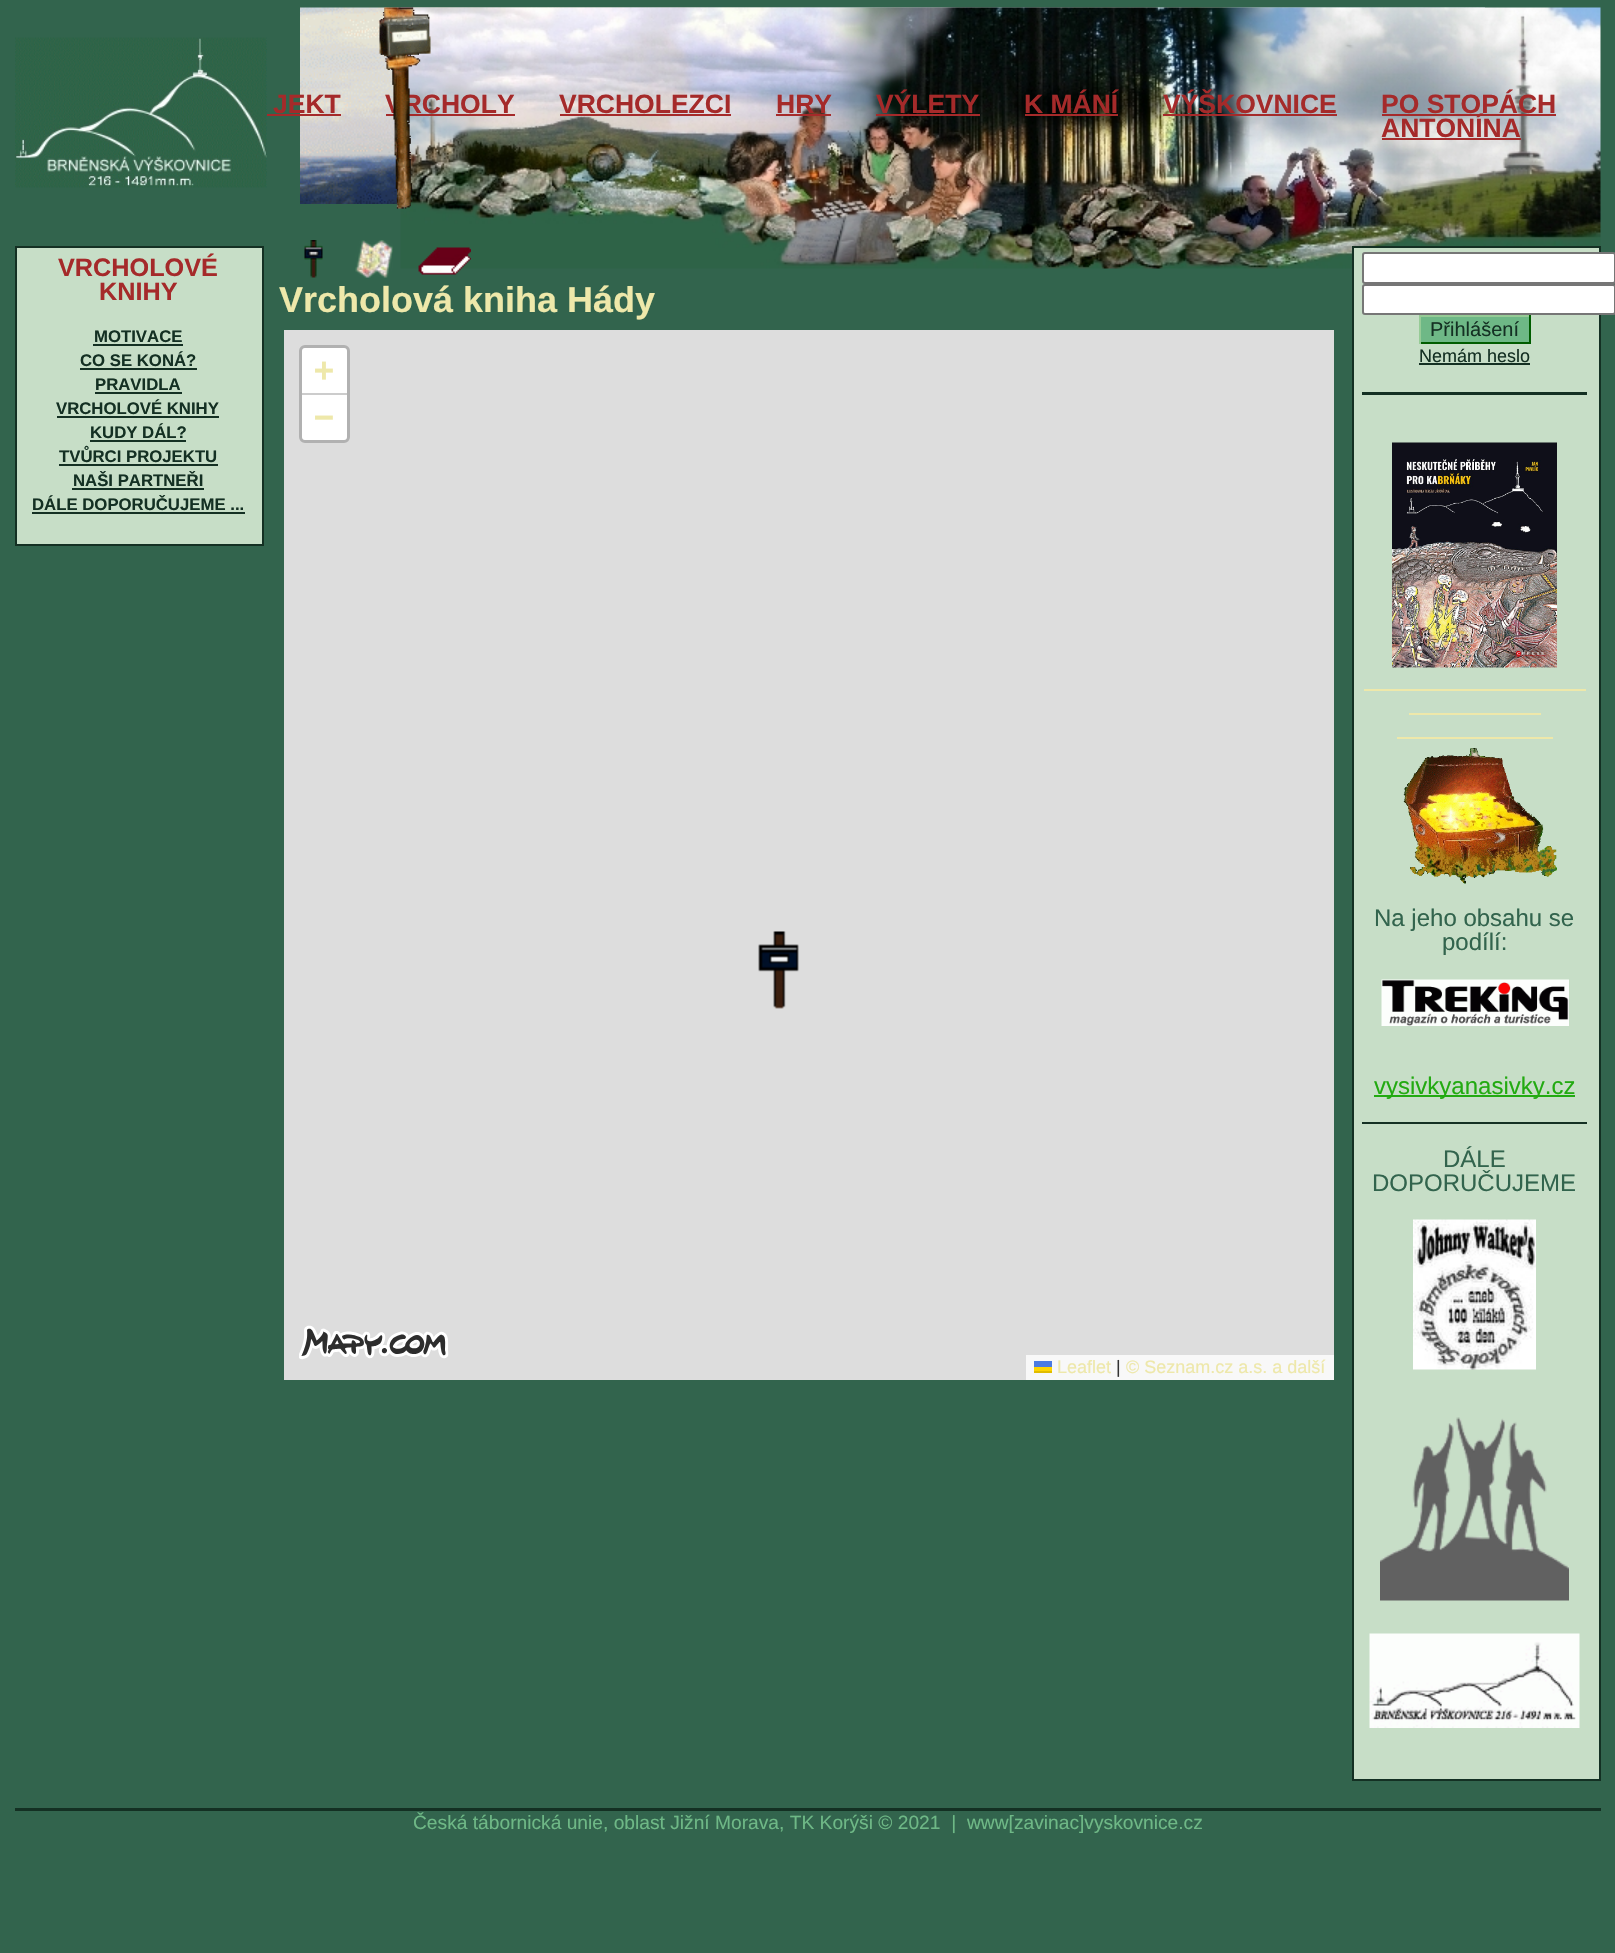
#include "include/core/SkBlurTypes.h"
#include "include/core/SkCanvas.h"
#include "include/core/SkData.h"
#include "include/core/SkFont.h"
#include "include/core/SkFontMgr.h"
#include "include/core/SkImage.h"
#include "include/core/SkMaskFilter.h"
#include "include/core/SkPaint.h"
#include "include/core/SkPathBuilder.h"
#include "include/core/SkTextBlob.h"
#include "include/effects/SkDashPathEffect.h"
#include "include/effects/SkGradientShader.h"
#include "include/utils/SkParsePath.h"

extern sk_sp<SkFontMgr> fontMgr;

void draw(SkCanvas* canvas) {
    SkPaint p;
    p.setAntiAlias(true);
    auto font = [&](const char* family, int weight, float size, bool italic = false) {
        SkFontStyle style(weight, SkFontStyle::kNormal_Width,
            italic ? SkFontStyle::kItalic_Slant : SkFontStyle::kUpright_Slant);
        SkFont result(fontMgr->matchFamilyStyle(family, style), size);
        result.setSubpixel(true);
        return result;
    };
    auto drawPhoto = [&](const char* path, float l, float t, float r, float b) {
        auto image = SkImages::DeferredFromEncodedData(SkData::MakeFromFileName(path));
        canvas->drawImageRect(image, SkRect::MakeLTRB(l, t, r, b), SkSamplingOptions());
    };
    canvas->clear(0xFF32644D);
    drawPhoto("media/1.png", 300, 7, 1485, 204);
    drawPhoto("media/3.png", 400, 7, 1601, 269);
    auto font1 = font("Liberation Sans", 700, 26.5f);
    p.setColor(0xFFA52A2A);
    canvas->drawString("VRCHOLY", 385, 113, font1, p);
    canvas->drawRect(SkRect::MakeLTRB(386, 114, 515, 116), p);
    drawPhoto("media/2.png", 379, 7, 431, 209);
    drawPhoto("media/4.png", 15, 37, 267, 188);
    canvas->drawString("JEKT", 273, 113, font1, p);
    canvas->drawRect(SkRect::MakeLTRB(267, 114, 341, 116), p);
    canvas->drawString("VRCHOLEZCI", 559, 113, font1, p);
    canvas->drawRect(SkRect::MakeLTRB(560, 114, 731, 116), p);
    canvas->drawString("HRY", 776, 113, font1, p);
    canvas->drawRect(SkRect::MakeLTRB(776, 114, 831, 116), p);
    canvas->drawString("VÝLETY", 876, 113, font1, p);
    canvas->drawRect(SkRect::MakeLTRB(876, 114, 980, 116), p);
    canvas->drawString("K MÁNÍ", 1024, 113, font1, p);
    canvas->drawRect(SkRect::MakeLTRB(1025, 114, 1118, 116), p);
    canvas->drawString("VÝŠKOVNICE", 1163, 113, font1, p);
    canvas->drawRect(SkRect::MakeLTRB(1163, 114, 1337, 116), p);
    canvas->drawString("PO STOPÁCH", 1381, 113, font1, p);
    canvas->drawRect(SkRect::MakeLTRB(1382, 114, 1556, 116), p);
    canvas->drawString("ANTONÍNA", 1381, 137, font1, p);
    canvas->drawRect(SkRect::MakeLTRB(1382, 138, 1521, 140), p);
    p.setColor(0xFF143023);
    canvas->drawRect(SkRect::MakeLTRB(15, 1808, 1601, 1811), p);
    p.setColor(0xFFC7DEC7);
    canvas->drawRect(SkRect::MakeLTRB(16, 247, 263, 545), p);
    p.setStyle(SkPaint::kStroke_Style);
    p.setStrokeWidth(2);
    p.setColor(0xFF143023);
    canvas->drawRect(SkRect::MakeLTRB(16, 247, 263, 545), p);
    auto font2 = font("Liberation Sans", 700, 25.25f);
    p.setStyle(SkPaint::kFill_Style);
    p.setColor(0xFFA52A2A);
    canvas->drawString("VRCHOLOVÉ", 58, 276, font2, p);
    canvas->drawString("KNIHY", 99, 300, font2, p);
    auto font3 = font("Liberation Sans", 700, 16.75f);
    p.setColor(0xFF143023);
    canvas->drawString("MOTIVACE", 94, 342, font3, p);
    canvas->drawRect(SkRect::MakeLTRB(93, 344, 183, 346), p);
    canvas->drawString("CO SE KONÁ?", 80, 366, font3, p);
    canvas->drawRect(SkRect::MakeLTRB(80, 368, 197, 370), p);
    canvas->drawString("PRAVIDLA", 95, 390, font3, p);
    canvas->drawRect(SkRect::MakeLTRB(95, 392, 182, 394), p);
    canvas->drawString("VRCHOLOVÉ KNIHY", 56, 414, font3, p);
    canvas->drawRect(SkRect::MakeLTRB(57, 416, 219, 418), p);
    canvas->drawString("KUDY DÁL?", 90, 438, font3, p);
    canvas->drawRect(SkRect::MakeLTRB(90, 440, 186, 442), p);
    canvas->drawString("TVŮRCI PROJEKTU", 59, 462, font3, p);
    canvas->drawRect(SkRect::MakeLTRB(59, 464, 218, 466), p);
    canvas->drawString("NAŠI PARTNEŘI", 73, 486, font3, p);
    canvas->drawRect(SkRect::MakeLTRB(72, 488, 204, 490), p);
    canvas->drawString("DÁLE DOPORUČUJEME ...", 32, 510, font3, p);
    canvas->drawRect(SkRect::MakeLTRB(32, 512, 245, 514), p);
    drawPhoto("media/5.png", 304, 240, 323, 278);
    drawPhoto("media/6.png", 355, 240, 393, 278);
    drawPhoto("media/7.png", 418, 247, 471, 275);
    auto font4 = font("Liberation Sans", 700, 36);
    p.setColor(0xFFEEE8AA);
    canvas->drawString("Vrcholová kniha Hády", 279, 312, font4, p);
    p.setColor(0xFFDDDDDD);
    canvas->drawRect(SkRect::MakeLTRB(284, 330, 1334, 1380), p);
    p.setStyle(SkPaint::kStroke_Style);
    p.setStrokeWidth(3);
    p.setColor(0xFFB1B1B1);
    canvas->drawRoundRect(SkRect::MakeLTRB(300.5f, 346.5f, 348.5f, 441.5f), 4.5f, 4.5f, p);
    p.setStyle(SkPaint::kFill_Style);
    p.setColor(0xFFFFFFFF);
    canvas->drawPath(SkPathBuilder().moveTo(305, 348).lineTo(344, 348).cubicTo(345.5f, 348, 347, 349.5f, 347, 351).lineTo(347, 395).lineTo(302, 395).lineTo(302, 351).cubicTo(302, 349.5f, 303.5f, 348, 305, 348).close().detach(), p);
    p.setColor(0xFFCCCCCC);
    canvas->drawRect(SkRect::MakeLTRB(302, 393, 347, 395), p);
    auto font5 = font("DejaVu Sans Mono", 700, 33);
    p.setColor(0xFFEEE8AA);
    canvas->drawString("+", 314, 381, font5, p);
    p.setColor(0xFFFFFFFF);
    canvas->drawPath(SkPathBuilder().moveTo(302, 395).lineTo(347, 395).lineTo(347, 437).cubicTo(347, 438.5f, 345.5f, 440, 344, 440).lineTo(305, 440).cubicTo(303.5f, 440, 302, 438.5f, 302, 437).close().detach(), p);
    p.setColor(0xFFEEE8AA);
    canvas->drawString("−", 314, 428, font5, p);
    drawPhoto("media/8.png", 299, 1325, 449, 1360);
    p.setColor(0xFFF8F8F8);
    canvas->drawRect(SkRect::MakeLTRB(1026, 1355, 1334, 1380), p);
    auto font6 = font("Liberation Sans", 400, 18);
    p.setColor(0xFFEEE8AA);
    canvas->drawString("Leaflet", 1057, 1373, font6, p);
    {
        const struct { float l, t, r, b; SkColor color; } items[] = {
            {1034, 1361, 1052, 1367, 0xFF4C7BE1},
            {1034, 1367, 1052, 1371, 0xFFFFD500},
            {1034, 1371, 1052, 1373, 0xFFE0BC00},
        };
        for (auto [l, t, r, b, color] : items) {
            p.setColor(color);
            canvas->drawRect(SkRect::MakeLTRB(l, t, r, b), p);
        }
    }
    p.setColor(0xFF333333);
    canvas->drawString("|", 1116, 1373, font6, p);
    p.setColor(0xFFEEE8AA);
    canvas->drawString("© Seznam.cz a.s. a další", 1126, 1373, font6, p);
    drawPhoto("media/9.png", 758, 931, 799, 1009);
    p.setColor(0xFFC7DEC7);
    canvas->drawRect(SkRect::MakeLTRB(1353, 247, 1600, 1780), p);
    p.setStyle(SkPaint::kStroke_Style);
    p.setStrokeWidth(2);
    p.setColor(0xFF143023);
    canvas->drawRect(SkRect::MakeLTRB(1353, 247, 1600, 1780), p);
    p.setStyle(SkPaint::kFill_Style);
    p.setColor(0xFFFFFFFF);
    canvas->drawRoundRect(SkRect::MakeLTRB(1363, 253, 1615, 283), 2, 2, p);
    p.setStyle(SkPaint::kStroke_Style);
    p.setColor(0xFF767676);
    canvas->drawRoundRect(SkRect::MakeLTRB(1363, 253, 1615, 283), 2, 2, p);
    p.setStyle(SkPaint::kFill_Style);
    p.setColor(0xFFFFFFFF);
    canvas->drawRoundRect(SkRect::MakeLTRB(1363, 285, 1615, 314), 2, 2, p);
    p.setStyle(SkPaint::kStroke_Style);
    p.setColor(0xFF767676);
    canvas->drawRoundRect(SkRect::MakeLTRB(1363, 285, 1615, 314), 2, 2, p);
    p.setStyle(SkPaint::kFill_Style);
    {
        const struct { float l, t, r, b; SkColor color; } items[] = {
            {1421, 317, 1529, 342, 0xFF6EB886},
            {1419, 315, 1530, 317, 0xFF96CB96},
            {1529, 315, 1531, 344, 0xFF005D00},
            {1419, 342, 1530, 344, 0xFF005D00},
            {1419, 315, 1421, 344, 0xFF96CB96},
        };
        for (auto [l, t, r, b, color] : items) {
            p.setColor(color);
            canvas->drawRect(SkRect::MakeLTRB(l, t, r, b), p);
        }
    }
    auto font7 = font("Liberation Sans", 400, 20);
    p.setColor(0xFF143023);
    canvas->drawString("Přihlášení", 1430, 336, font7, p);
    canvas->drawString("Nemám heslo", 1419, 362, font6, p);
    canvas->drawRect(SkRect::MakeLTRB(1419, 363, 1530, 365), p);
    canvas->drawRect(SkRect::MakeLTRB(1362, 392, 1587, 395), p);
    drawPhoto("media/10.png", 1392, 442, 1557, 668);
    {
        const struct { float l, t, r, b; SkColor color; } items[] = {
            {1364, 689, 1586, 691, 0xFFEEE8AA},
            {1409, 713, 1541, 715, 0xFFEEE8AA},
            {1397, 737, 1553, 739, 0xFFEEE8AA},
        };
        for (auto [l, t, r, b, color] : items) {
            p.setColor(color);
            canvas->drawRect(SkRect::MakeLTRB(l, t, r, b), p);
        }
    }
    drawPhoto("media/11.png", 1403, 748, 1557, 884);
    auto font8 = font("Liberation Sans", 400, 24);
    p.setColor(0xFF32644D);
    canvas->drawString("Na jeho obsahu se", 1374, 926, font8, p);
    canvas->drawString("podílí:", 1442, 950, font8, p);
    drawPhoto("media/12.png", 1381, 979, 1569, 1026);
    p.setColor(0xFF22AA11);
    canvas->drawRect(SkRect::MakeLTRB(1374, 1095, 1575, 1097), p);
    canvas->drawString("vysivkyanasivky.cz", 1374, 1094, font8, p);
    p.setColor(0xFF143023);
    canvas->drawRect(SkRect::MakeLTRB(1362, 1122, 1587, 1124), p);
    p.setColor(0xFF32644D);
    canvas->drawString("DÁLE", 1443, 1167, font8, p);
    canvas->drawString("DOPORUČUJEME", 1372, 1191, font8, p);
    drawPhoto("media/13.png", 1413, 1219, 1536, 1370);
    drawPhoto("media/14.png", 1380, 1417, 1569, 1601);
    drawPhoto("media/15.png", 1369, 1633, 1580, 1728);
    auto font9 = font("Liberation Sans", 400, 19.2f);
    p.setColor(0xFF6EB886);
    canvas->drawString("Česká tábornická unie, oblast Jižní Morava, TK Korýši © 2021  |", 413, 1829, font9, p);
    canvas->drawString("www[zavinac]vyskovnice.cz", 967, 1829, font9, p);
}
